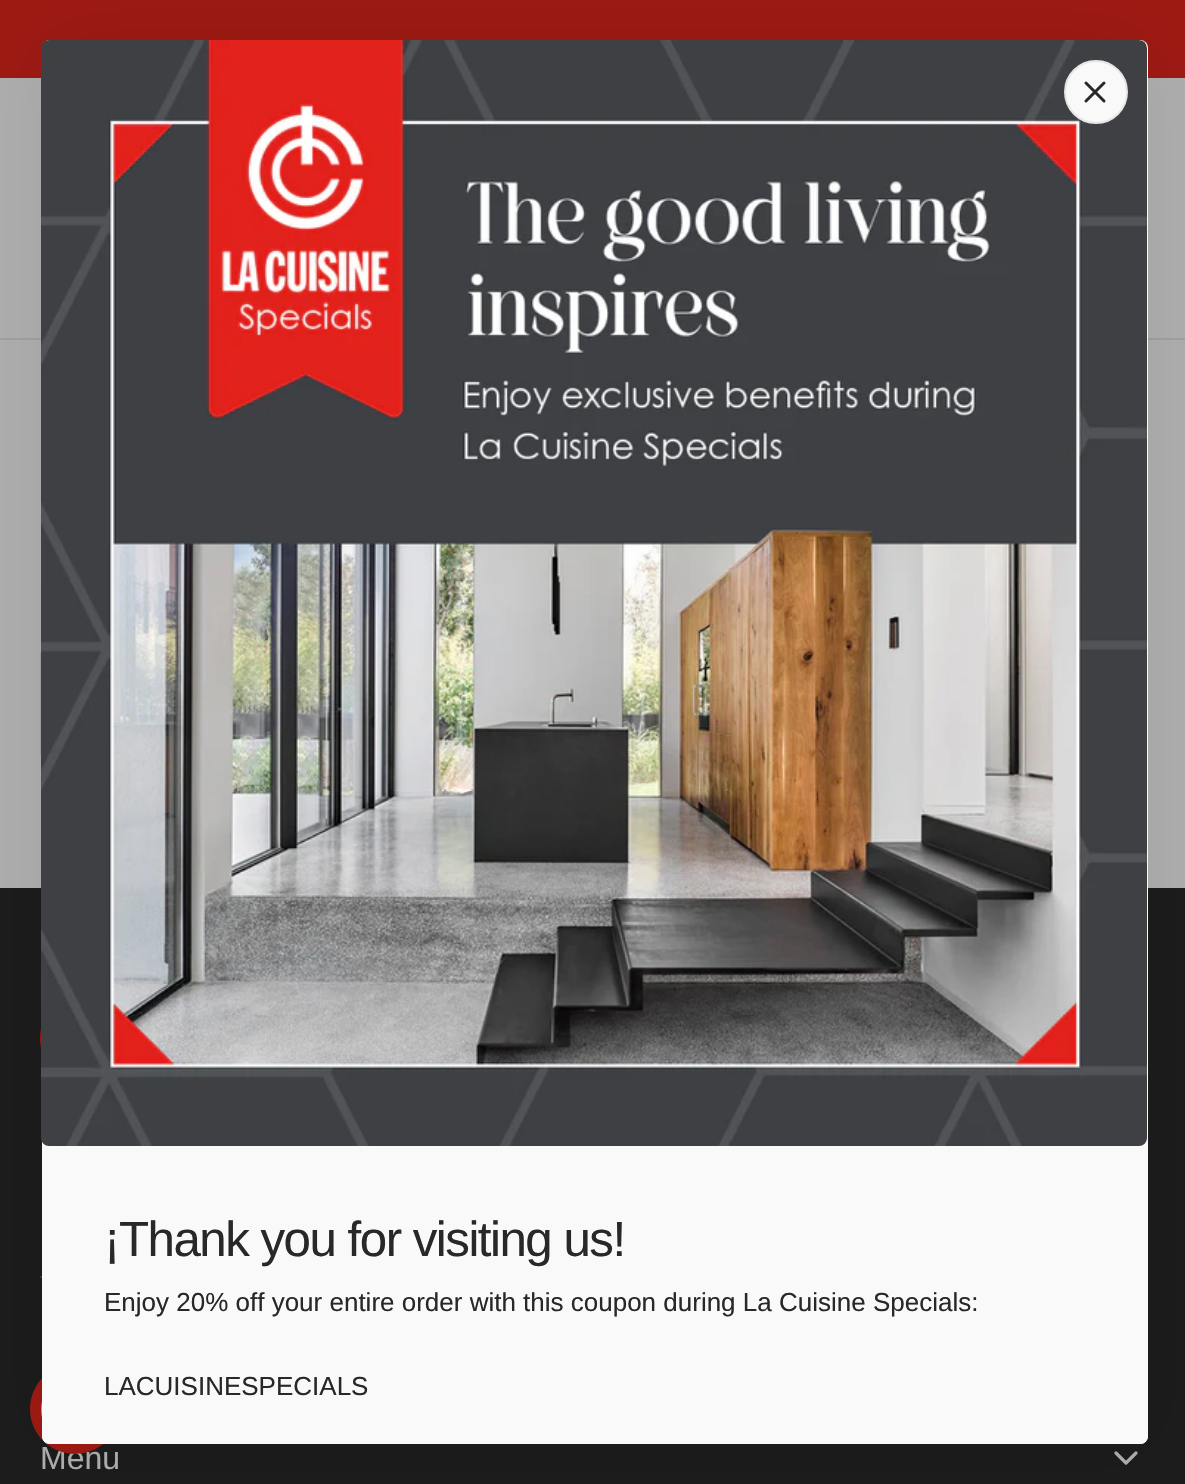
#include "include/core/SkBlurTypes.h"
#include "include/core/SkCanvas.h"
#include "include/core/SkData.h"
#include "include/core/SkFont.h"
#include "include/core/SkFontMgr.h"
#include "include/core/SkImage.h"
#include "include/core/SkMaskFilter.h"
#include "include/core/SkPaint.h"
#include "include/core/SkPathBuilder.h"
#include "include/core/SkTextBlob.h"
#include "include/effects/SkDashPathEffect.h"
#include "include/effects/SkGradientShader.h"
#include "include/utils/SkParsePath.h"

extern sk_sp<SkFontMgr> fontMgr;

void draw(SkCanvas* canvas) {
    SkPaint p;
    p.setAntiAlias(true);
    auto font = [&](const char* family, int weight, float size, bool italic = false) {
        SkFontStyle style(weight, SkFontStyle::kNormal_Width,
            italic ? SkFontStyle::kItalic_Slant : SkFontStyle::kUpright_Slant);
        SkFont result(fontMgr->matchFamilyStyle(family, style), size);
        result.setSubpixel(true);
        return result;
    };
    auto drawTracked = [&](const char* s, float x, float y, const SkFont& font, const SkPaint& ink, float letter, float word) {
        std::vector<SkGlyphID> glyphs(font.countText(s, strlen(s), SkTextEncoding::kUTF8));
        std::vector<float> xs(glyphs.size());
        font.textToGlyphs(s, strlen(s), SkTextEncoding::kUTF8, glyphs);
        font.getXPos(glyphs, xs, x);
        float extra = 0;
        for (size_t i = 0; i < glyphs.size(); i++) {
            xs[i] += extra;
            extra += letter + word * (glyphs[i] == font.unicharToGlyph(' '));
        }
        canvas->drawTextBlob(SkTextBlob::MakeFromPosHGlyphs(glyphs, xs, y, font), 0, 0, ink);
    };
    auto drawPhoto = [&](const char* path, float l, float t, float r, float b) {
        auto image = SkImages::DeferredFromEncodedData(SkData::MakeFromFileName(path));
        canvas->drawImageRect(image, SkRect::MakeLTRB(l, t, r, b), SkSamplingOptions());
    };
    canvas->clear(0xFFAEAEAE);
    p.setColor(0xFF9E1A13);
    canvas->drawRect(SkRect::MakeLTRB(0, 0, 1185, 78), p);
    p.setColor(0xFFA0A0A0);
    canvas->drawRect(SkRect::MakeLTRB(0, 338, 1185, 340), p);
    p.setStyle(SkPaint::kStroke_Style);
    p.setStrokeWidth(2);
    canvas->drawRoundRect(SkRect::MakeLTRB(41, 649, 881, 759), 7, 7, p);
    p.setStyle(SkPaint::kFill_Style);
    p.setColor(0xFF1C1C1C);
    canvas->drawRect(SkRect::MakeLTRB(0, 888, 1185, 1484), p);
    auto font1 = font("Liberation Sans", 400, 32);
    p.setColor(0xFFAEAEAE);
    canvas->drawString("Menu", 40, 1469, font1, p);
    p.setColor(0xFF9E1A13);
    canvas->drawCircle(75, 1409, 45, p);
    drawPhoto("media/2.png", 41, 1401, 42, 1417);
    drawPhoto("media/3.png", 40, 1029, 41, 1048);
    p.setColor(0xFF393939);
    canvas->drawRect(SkRect::MakeLTRB(40, 1276, 42, 1278), p);
    p.setStyle(SkPaint::kStroke_Style);
    p.setStrokeWidth(3.2f);
    p.setStrokeCap(SkPaint::kRound_Cap);
    p.setStrokeJoin(SkPaint::kRound_Join);
    p.setColor(0xFFAEAEAE);
    canvas->drawPath(SkPathBuilder().moveTo(1136, 1453).lineTo(1126, 1463).lineTo(1116, 1453).detach(), p);
    p.setStyle(SkPaint::kFill_Style);
    p.setColor(0x12000000);
    p.setMaskFilter(SkMaskFilter::MakeBlur(kNormal_SkBlurStyle, 40));
    canvas->drawRoundRect(SkRect::MakeLTRB(42, 40, 1148, 1444), 8, 8, p);
    p.setMaskFilter(nullptr);
    p.setColor(0xFFF9F9F9);
    canvas->drawRoundRect(SkRect::MakeLTRB(42, 40, 1148, 1444), 8, 8, p);
    drawPhoto("media/1.png", 41, 40, 1147, 1146);
    canvas->drawPath(SkPathBuilder().moveTo(42, 1146).lineTo(1148, 1146).lineTo(1148, 1436).cubicTo(1148, 1440.5f, 1144.5f, 1444, 1140, 1444).lineTo(50, 1444).cubicTo(45.5f, 1444, 42, 1440.5f, 42, 1436).close().detach(), p);
    canvas->drawCircle(1096, 92, 31, p);
    p.setStyle(SkPaint::kStroke_Style);
    p.setStrokeWidth(2);
    p.setStrokeCap(SkPaint::kButt_Cap);
    p.setStrokeJoin(SkPaint::kMiter_Join);
    p.setColor(0xFFE5E5E5);
    canvas->drawCircle(1096, 92, 31, p);
    p.setStrokeWidth(3);
    p.setStrokeCap(SkPaint::kRound_Cap);
    p.setStrokeJoin(SkPaint::kRound_Join);
    p.setColor(0xFF282828);
    canvas->drawPath(SkPathBuilder().moveTo(1104, 83).lineTo(1086, 101).moveTo(1104, 101).lineTo(1086, 83).detach(), p);
    auto font2 = font("Liberation Sans", 400, 49.25f);
    p.setStyle(SkPaint::kFill_Style);
    drawTracked("¡Thank you for visiting us!", 104, 1256, font2, p, -1.5f, 0);
    auto font3 = font("Liberation Sans", 400, 26);
    canvas->drawString("Enjoy 20% off your entire order with this coupon during La Cuisine Specials:", 104, 1311, font3, p);
    canvas->drawString("LACUISINESPECIALS", 104, 1395, font3, p);
}
